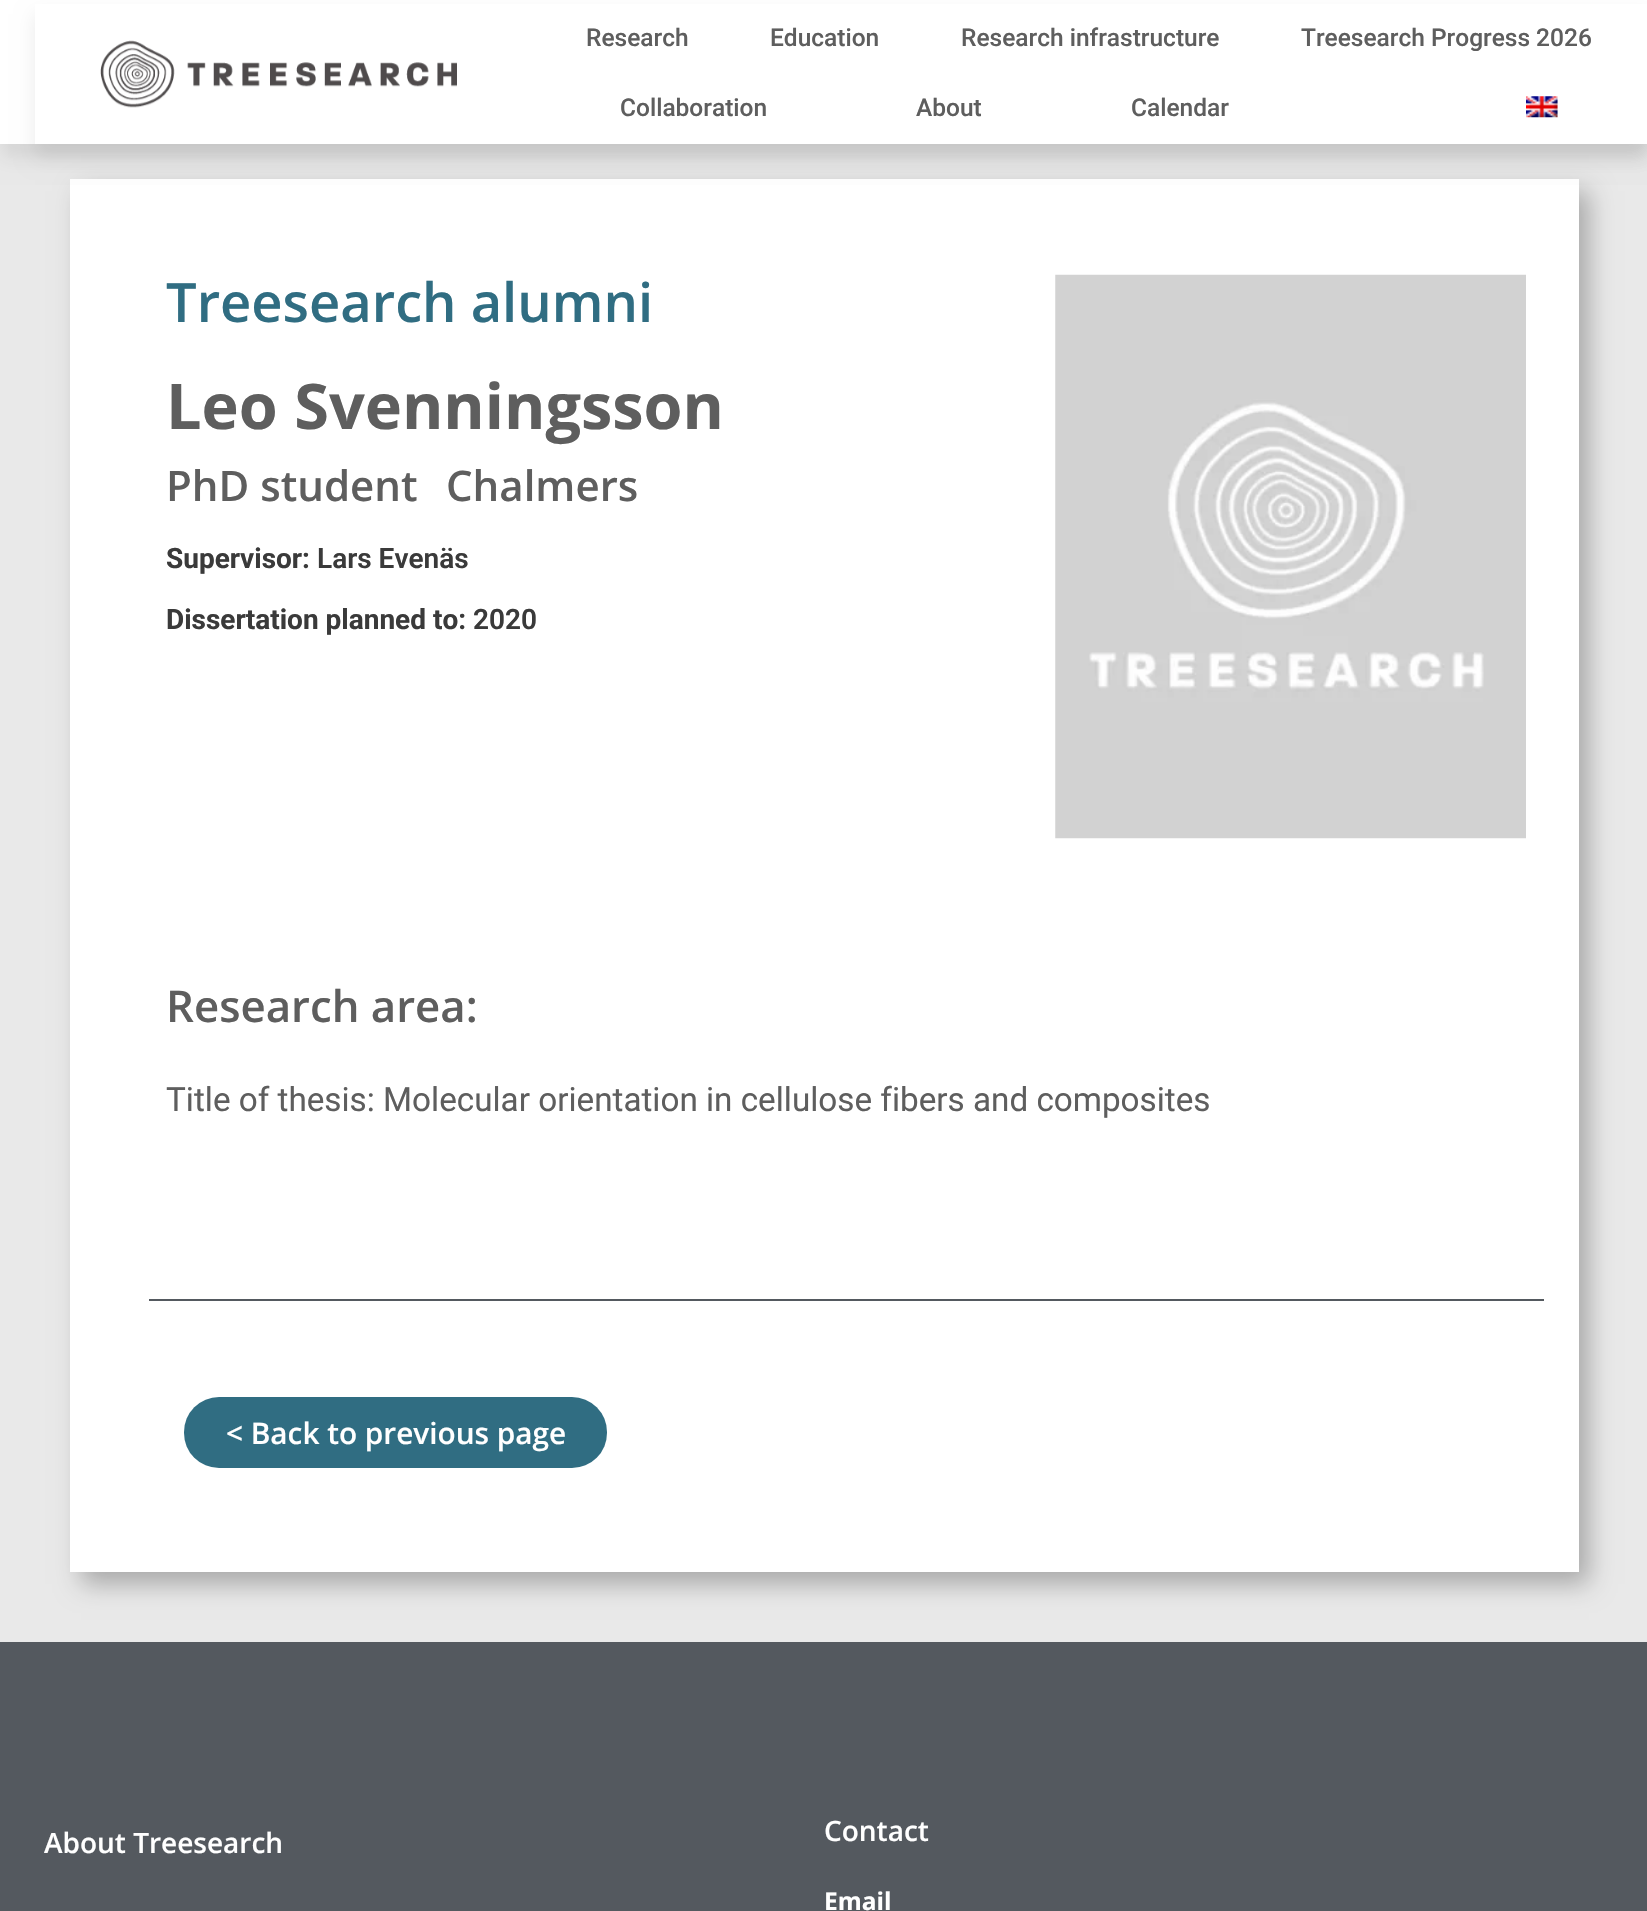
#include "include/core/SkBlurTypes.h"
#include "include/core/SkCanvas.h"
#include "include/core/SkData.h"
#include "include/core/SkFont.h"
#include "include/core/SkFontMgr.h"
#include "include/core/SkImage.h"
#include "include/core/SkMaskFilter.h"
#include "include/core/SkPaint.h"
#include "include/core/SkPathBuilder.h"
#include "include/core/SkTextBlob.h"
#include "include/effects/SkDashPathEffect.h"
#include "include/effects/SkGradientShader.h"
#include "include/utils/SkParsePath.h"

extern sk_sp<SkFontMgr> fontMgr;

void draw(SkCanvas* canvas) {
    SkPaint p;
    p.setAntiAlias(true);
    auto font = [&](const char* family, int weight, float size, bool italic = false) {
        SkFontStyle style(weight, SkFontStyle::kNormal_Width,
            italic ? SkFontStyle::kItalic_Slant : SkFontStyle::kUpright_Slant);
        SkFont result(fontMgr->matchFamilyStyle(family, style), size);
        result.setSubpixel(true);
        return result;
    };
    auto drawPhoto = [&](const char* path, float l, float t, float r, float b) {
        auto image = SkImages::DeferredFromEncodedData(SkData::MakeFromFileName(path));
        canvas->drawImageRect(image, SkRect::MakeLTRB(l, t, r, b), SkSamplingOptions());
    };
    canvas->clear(0xFFFFFFFF);
    p.setColor(0xFFE9E9E9);
    canvas->drawRect(SkRect::MakeLTRB(0, 144, 1647, 1642), p);
    p.setColor(0x47010101);
    p.setMaskFilter(SkMaskFilter::MakeBlur(kNormal_SkBlurStyle, 12));
    canvas->drawRect(SkRect::MakeLTRB(81, 191, 1589, 1584), p);
    p.setMaskFilter(nullptr);
    p.setColor(0xFFFFFFFF);
    canvas->drawRect(SkRect::MakeLTRB(70, 179, 1579, 1572), p);
    canvas->save();
    canvas->clipPath(SkPathBuilder(SkPathFillType::kEvenOdd).moveTo(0, 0).lineTo(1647, 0).lineTo(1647, 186).lineTo(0, 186).close().moveTo(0, 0).lineTo(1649, 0).lineTo(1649, 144).lineTo(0, 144).close().detach(), true);
    p.setColor(0x14000000);
    p.setMaskFilter(SkMaskFilter::MakeBlur(kNormal_SkBlurStyle, 9));
    canvas->drawRect(SkRect::MakeLTRB(0, 14, 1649, 158), p);
    p.setMaskFilter(nullptr);
    canvas->restore();
    p.setColor(0xF7FFFFFF);
    canvas->drawRect(SkRect::MakeLTRB(0, 143, 35, 144), p);
    p.setColor(0x14000000);
    p.setMaskFilter(SkMaskFilter::MakeBlur(kNormal_SkBlurStyle, 9));
    canvas->drawRect(SkRect::MakeLTRB(35, 14, 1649, 158), p);
    p.setMaskFilter(nullptr);
    p.setColor(0xFFFFFFFF);
    canvas->drawRect(SkRect::MakeLTRB(35, 4, 1647, 144), p);
    drawPhoto("media/1.png", 100, 40, 457, 108);
    auto font1 = font("Roboto", 500, 24.5f);
    p.setColor(0xFF5E5E5E);
    {
        const struct { const char* s; float x, y; } items[] = {
            {"Research", 586, 46},
            {"Education", 770, 46},
            {"Research infrastructure", 961, 46},
            {"Treesearch Progress 2026", 1301, 46},
            {"Collaboration", 620, 116},
            {"About", 916, 116},
            {"Calendar", 1131, 116},
        };
        for (auto [s, x, y] : items) {
            canvas->drawString(s, x, y, font1, p);
        }
    }
    drawPhoto("media/2.png", 1526, 96, 1558, 118);
    auto font2 = font("Open Sans", 600, 54.25f);
    p.setColor(0xFF306D82);
    canvas->drawString("Treesearch alumni", 166, 322, font2, p);
    auto font3 = font("Open Sans", 700, 63);
    p.setColor(0xFF5E5E5E);
    canvas->drawString("Leo Svenningsson", 166, 429, font3, p);
    auto font4 = font("Open Sans", 600, 42);
    canvas->drawString("PhD student", 166, 501, font4, p);
    canvas->drawString("Chalmers", 446, 501, font4, p);
    auto font5 = font("Roboto", 700, 28);
    p.setColor(0xFF3A3A3A);
    canvas->drawString("Supervisor:", 166, 568, font5, p);
    auto font6 = font("Roboto", 600, 28);
    canvas->drawString("Lars Evenäs", 317, 568, font6, p);
    canvas->drawString("Dissertation planned to:", 166, 629, font5, p);
    canvas->drawString("2020", 473, 629, font6, p);
    drawPhoto("media/3.png", 1055, 274, 1526, 839);
    auto font7 = font("Open Sans", 600, 43.75f);
    p.setColor(0xFF5E5E5E);
    canvas->drawString("Research area:", 166, 1022, font7, p);
    auto font8 = font("Roboto", 400, 33.25f);
    canvas->drawString("Title of thesis: Molecular orientation in cellulose fibers and composites", 166, 1111, font8, p);
    p.setColor(0xFF54595F);
    canvas->drawRect(SkRect::MakeLTRB(149, 1299, 1544, 1301), p);
    p.setColor(0xFF306D82);
    canvas->drawRoundRect(SkRect::MakeLTRB(184, 1397, 607, 1468), 35, 35, p);
    auto font9 = font("Open Sans", 600, 29.75f);
    p.setColor(0xFFFFFFFF);
    canvas->drawString("< Back to previous page", 226, 1444, font9, p);
    p.setColor(0xFF54595F);
    canvas->drawRect(SkRect::MakeLTRB(0, 1642, 1647, 1911), p);
    auto font10 = font("Open Sans", 600, 28);
    p.setColor(0xFFFFFFFF);
    canvas->drawString("About Treesearch", 44, 1853, font10, p);
    canvas->drawString("Contact", 824, 1841, font10, p);
    auto font11 = font("Open Sans", 700, 24.5f);
    canvas->drawString("Email", 824, 1910, font11, p);
}
